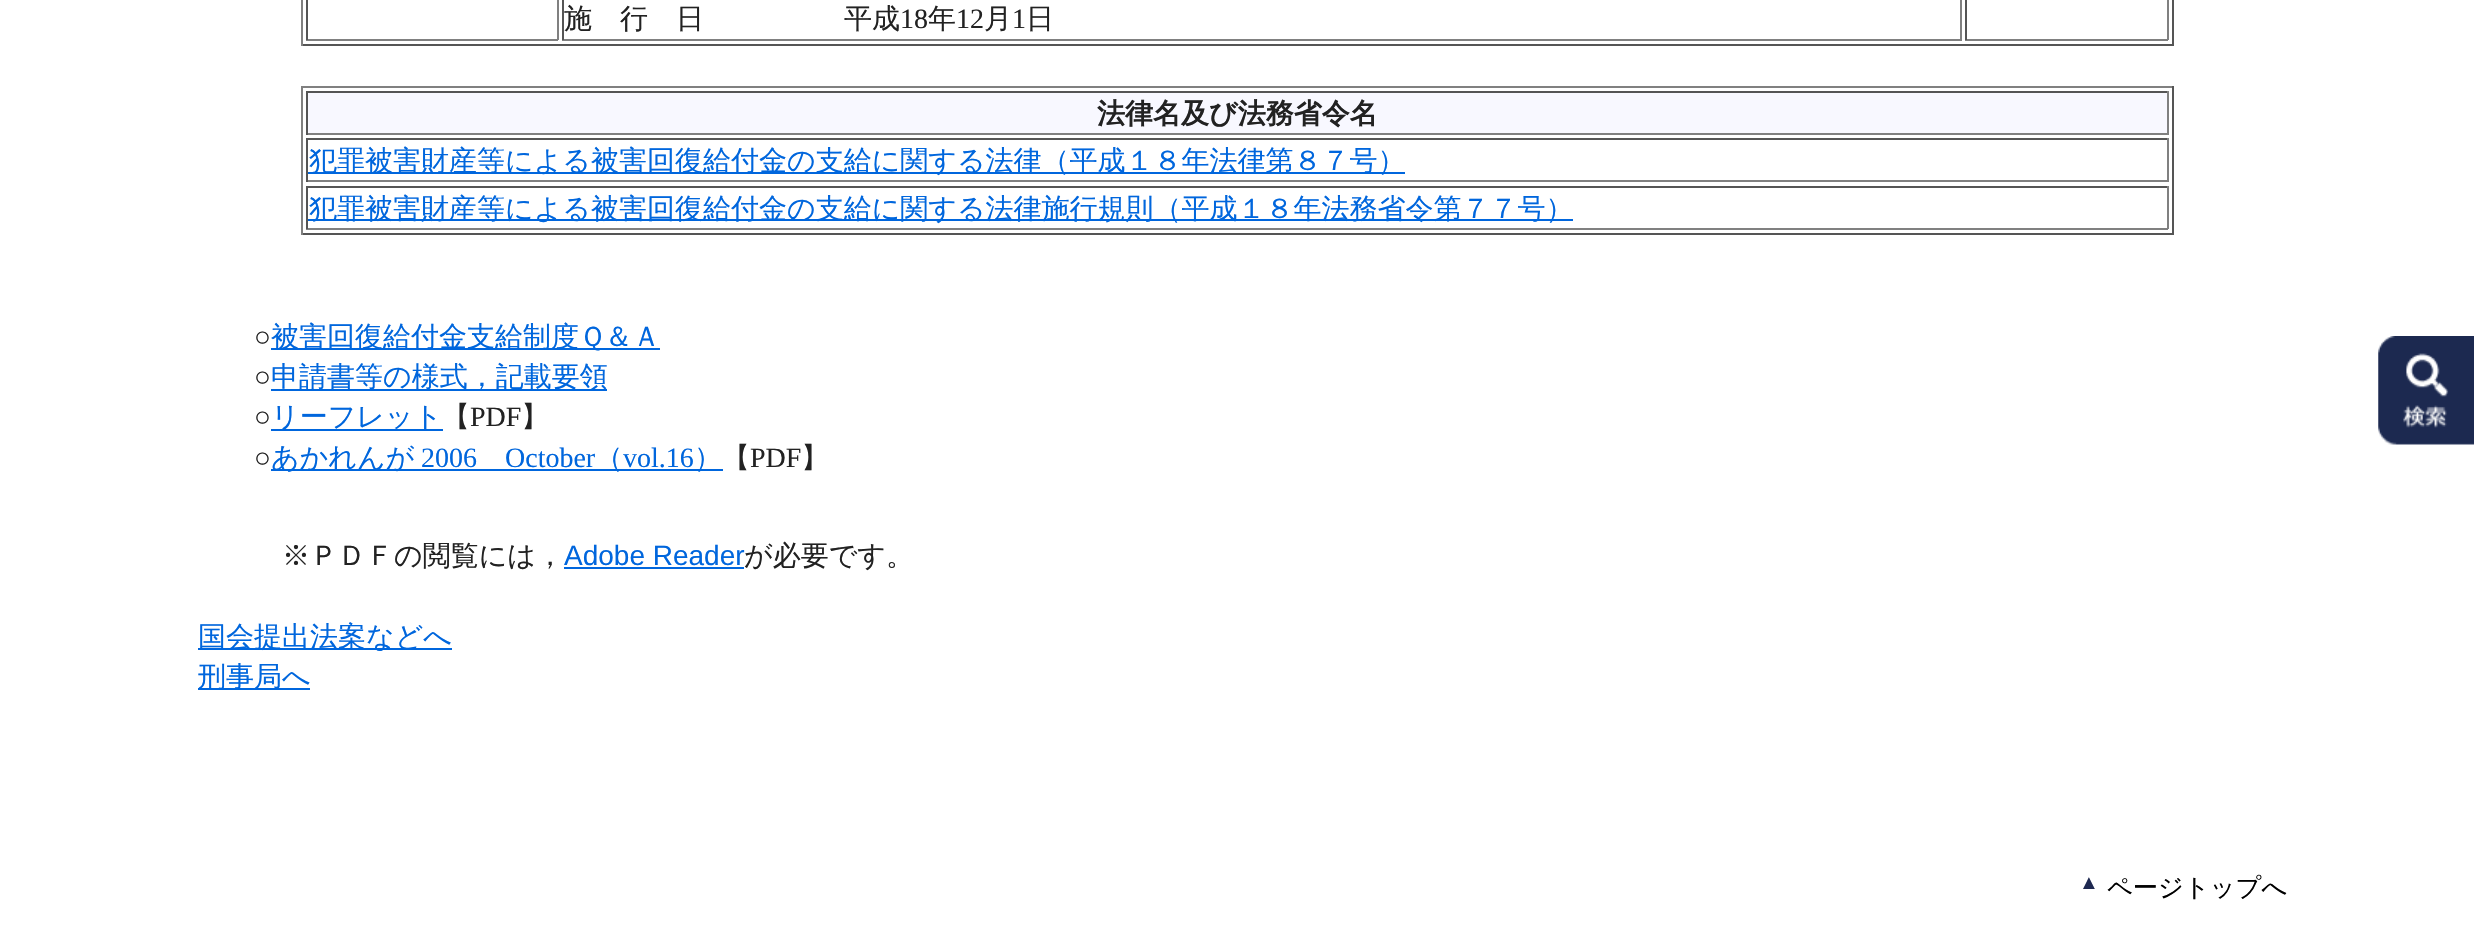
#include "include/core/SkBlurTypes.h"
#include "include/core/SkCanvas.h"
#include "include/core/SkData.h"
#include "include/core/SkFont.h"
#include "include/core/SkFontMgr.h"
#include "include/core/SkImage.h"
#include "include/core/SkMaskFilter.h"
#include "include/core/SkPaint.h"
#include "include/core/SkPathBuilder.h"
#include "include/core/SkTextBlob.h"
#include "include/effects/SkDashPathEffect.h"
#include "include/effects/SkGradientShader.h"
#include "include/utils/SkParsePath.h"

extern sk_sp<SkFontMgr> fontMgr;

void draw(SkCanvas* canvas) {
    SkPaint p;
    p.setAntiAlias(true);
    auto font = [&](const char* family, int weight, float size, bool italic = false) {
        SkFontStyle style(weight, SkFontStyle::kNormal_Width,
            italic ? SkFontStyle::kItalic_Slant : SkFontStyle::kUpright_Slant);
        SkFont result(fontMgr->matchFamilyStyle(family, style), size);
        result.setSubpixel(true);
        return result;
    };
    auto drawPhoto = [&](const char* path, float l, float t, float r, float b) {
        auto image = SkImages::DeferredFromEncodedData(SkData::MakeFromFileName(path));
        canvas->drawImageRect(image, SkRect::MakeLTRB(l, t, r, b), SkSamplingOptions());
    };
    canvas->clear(0xFFFFFFFF);
    {
        const struct { float l, t, r, b; SkColor color; } items[] = {
            {2172, 0, 2174, 46, 0xFF555555},
            {301, 44, 2174, 46, 0xFF555555},
            {301, 0, 303, 46, 0xFF808080},
            {557, 0, 559, 40, 0xFF808080},
            {306, 39, 558, 41, 0xFF808080},
            {306, 0, 308, 40, 0xFF555555},
            {1960, 0, 1962, 40, 0xFF808080},
            {562, 39, 1962, 41, 0xFF808080},
            {562, 0, 564, 40, 0xFF555555},
        };
        for (auto [l, t, r, b, color] : items) {
            p.setColor(color);
            canvas->drawRect(SkRect::MakeLTRB(l, t, r, b), p);
        }
    }
    auto font1 = font("WenQuanYi Zen Hei", 500, 28);
    p.setColor(0xFF222222);
    canvas->drawString("施　行　日", 564, 28, font1, p);
    canvas->drawString("平成", 844, 28, font1, p);
    auto font2 = font("Liberation Serif", 400, 28);
    canvas->drawString("18", 900, 28, font2, p);
    canvas->drawString("年", 928, 28, font1, p);
    canvas->drawString("12", 956, 28, font2, p);
    canvas->drawString("月", 984, 28, font1, p);
    canvas->drawString("1", 1012, 28, font2, p);
    canvas->drawString("日", 1026, 28, font1, p);
    {
        const struct { float l, t, r, b; SkColor color; } items[] = {
            {2167, 0, 2169, 40, 0xFF808080},
            {1965, 39, 2168, 41, 0xFF808080},
            {1965, 0, 1967, 40, 0xFF555555},
            {301, 86, 2174, 88, 0xFF808080},
            {2172, 86, 2174, 235, 0xFF555555},
            {301, 233, 2174, 235, 0xFF555555},
            {301, 86, 303, 235, 0xFF808080},
            {308, 93, 2167, 133, 0xFFF8F8FF},
            {306, 91, 2168, 93, 0xFF555555},
            {2167, 91, 2169, 135, 0xFF808080},
            {306, 133, 2168, 135, 0xFF808080},
            {306, 91, 308, 135, 0xFF555555},
        };
        for (auto [l, t, r, b, color] : items) {
            p.setColor(color);
            canvas->drawRect(SkRect::MakeLTRB(l, t, r, b), p);
        }
    }
    auto font3 = font("WenQuanYi Zen Hei", 700, 28);
    p.setColor(0xFF222222);
    canvas->drawString("法律名及び法務省令名", 1097, 123, font3, p);
    {
        const struct { float l, t, r, b; SkColor color; } items[] = {
            {306, 138, 2168, 140, 0xFF555555},
            {2167, 138, 2169, 182, 0xFF808080},
            {306, 180, 2168, 182, 0xFF808080},
            {306, 138, 308, 182, 0xFF555555},
            {308, 172, 1405, 174, 0xFF0066DD},
        };
        for (auto [l, t, r, b, color] : items) {
            p.setColor(color);
            canvas->drawRect(SkRect::MakeLTRB(l, t, r, b), p);
        }
    }
    canvas->drawString("犯罪被害財産等による被害回復給付金の支給に関する法律（平成１８年法律第８７号）", 309, 170, font1, p);
    {
        const struct { float l, t, r, b; SkColor color; } items[] = {
            {306, 186, 2168, 188, 0xFF555555},
            {2167, 186, 2169, 229, 0xFF808080},
            {306, 228, 2168, 230, 0xFF808080},
            {306, 186, 308, 229, 0xFF555555},
            {308, 219, 1573, 221, 0xFF0066DD},
        };
        for (auto [l, t, r, b, color] : items) {
            p.setColor(color);
            canvas->drawRect(SkRect::MakeLTRB(l, t, r, b), p);
        }
    }
    canvas->drawString("犯罪被害財産等による被害回復給付金の支給に関する法律施行規則（平成１８年法務省令第７７号）", 309, 218, font1, p);
    p.setColor(0xFF222222);
    canvas->drawString("○", 254, 346, font2, p);
    p.setColor(0xFF0066DD);
    canvas->drawRect(SkRect::MakeLTRB(271, 348, 660, 350), p);
    canvas->drawString("被害回復給付金支給制度Ｑ＆Ａ", 271, 346, font1, p);
    p.setColor(0xFF222222);
    canvas->drawString("○", 254, 386, font2, p);
    p.setColor(0xFF0066DD);
    canvas->drawRect(SkRect::MakeLTRB(271, 389, 607, 391), p);
    canvas->drawString("申請書等の様式，記載要領", 271, 386, font1, p);
    p.setColor(0xFF222222);
    canvas->drawString("○", 254, 426, font2, p);
    p.setColor(0xFF0066DD);
    canvas->drawRect(SkRect::MakeLTRB(271, 429, 443, 431), p);
    canvas->drawString("リーフレット", 271, 426, font1, p);
    p.setColor(0xFF222222);
    canvas->drawString("【", 442, 426, font1, p);
    canvas->drawString("PDF", 470, 426, font2, p);
    canvas->drawString("】", 521, 426, font1, p);
    canvas->drawString("○", 254, 467, font2, p);
    p.setColor(0xFF0066DD);
    canvas->drawRect(SkRect::MakeLTRB(271, 469, 723, 471), p);
    canvas->drawString("あかれんが", 271, 467, font1, p);
    canvas->drawString("2006", 421, 467, font2, p);
    canvas->drawString("October", 505, 467, font2, p);
    canvas->drawString("（", 595, 467, font1, p);
    canvas->drawString("vol.16", 623, 467, font2, p);
    canvas->drawString("）", 694, 467, font1, p);
    p.setColor(0xFF222222);
    canvas->drawString("【", 722, 467, font1, p);
    canvas->drawString("PDF", 750, 467, font2, p);
    canvas->drawString("】", 801, 467, font1, p);
    canvas->drawString("※ＰＤＦの閲覧には，", 282, 565, font1, p);
    auto font4 = font("Liberation Sans", 400, 28);
    p.setColor(0xFF0066DD);
    canvas->drawString("Adobe Reader", 564, 565, font4, p);
    canvas->drawRect(SkRect::MakeLTRB(564, 567, 744, 569), p);
    p.setColor(0xFF222222);
    canvas->drawString("が必要です。", 744, 565, font1, p);
    p.setColor(0xFF0066DD);
    canvas->drawRect(SkRect::MakeLTRB(198, 648, 452, 650), p);
    canvas->drawString("国会提出法案などへ", 198, 646, font1, p);
    canvas->drawRect(SkRect::MakeLTRB(198, 688, 310, 690), p);
    canvas->drawString("刑事局へ", 198, 686, font1, p);
    auto font5 = font("Liberation Sans", 400, 20);
    p.setColor(0xFF1E2951);
    canvas->drawString("▲", 2079, 889, font5, p);
    auto font6 = font("WenQuanYi Zen Hei", 500, 25.25f);
    p.setColor(0xFF000000);
    canvas->drawString("ページトップへ", 2107, 896, font6, p);
    drawPhoto("media/1.png", 2378, 336, 2474, 445);
}
